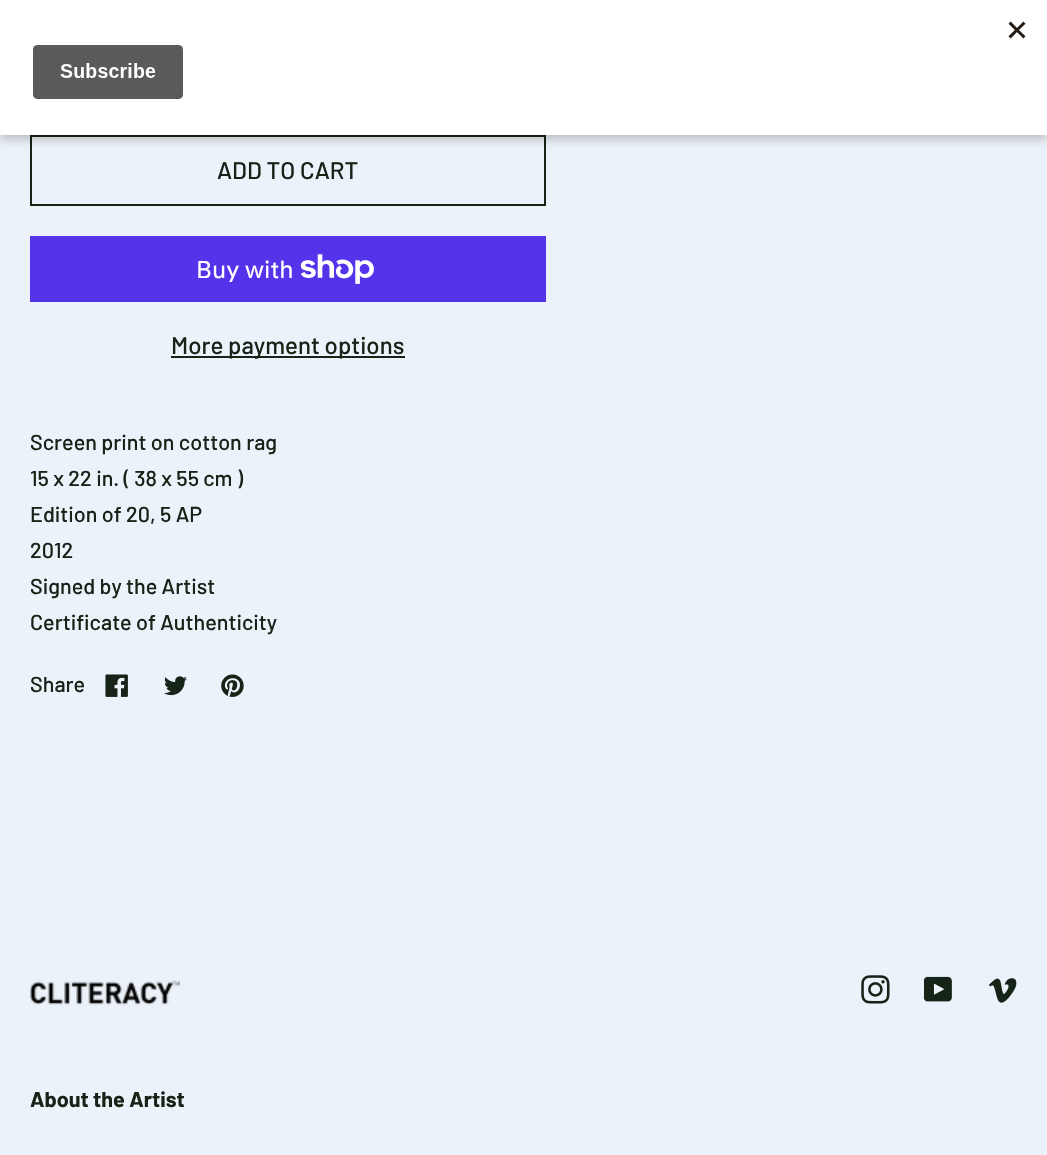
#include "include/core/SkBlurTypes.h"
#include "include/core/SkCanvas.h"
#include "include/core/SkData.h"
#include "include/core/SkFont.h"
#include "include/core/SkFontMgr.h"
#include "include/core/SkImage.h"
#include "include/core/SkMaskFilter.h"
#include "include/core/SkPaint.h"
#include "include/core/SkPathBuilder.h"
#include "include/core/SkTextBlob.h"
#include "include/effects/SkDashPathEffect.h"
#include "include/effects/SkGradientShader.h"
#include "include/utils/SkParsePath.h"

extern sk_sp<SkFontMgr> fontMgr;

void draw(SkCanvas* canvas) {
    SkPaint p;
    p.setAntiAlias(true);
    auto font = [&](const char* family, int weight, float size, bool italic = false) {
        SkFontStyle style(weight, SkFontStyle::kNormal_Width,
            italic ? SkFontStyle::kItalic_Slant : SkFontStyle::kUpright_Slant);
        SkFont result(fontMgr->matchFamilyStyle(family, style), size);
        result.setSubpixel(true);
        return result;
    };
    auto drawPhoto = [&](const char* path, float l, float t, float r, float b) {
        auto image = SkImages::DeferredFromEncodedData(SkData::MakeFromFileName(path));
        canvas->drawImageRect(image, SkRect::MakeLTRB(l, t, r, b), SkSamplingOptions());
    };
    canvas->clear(0xFFECF2F9);
    p.setStyle(SkPaint::kStroke_Style);
    p.setStrokeWidth(2);
    p.setColor(0xFF162317);
    canvas->drawRect(SkRect::MakeLTRB(31, 136, 545, 205), p);
    p.setStyle(SkPaint::kFill_Style);
    p.setColor(0x33000000);
    p.setMaskFilter(SkMaskFilter::MakeBlur(kNormal_SkBlurStyle, 4.5f));
    canvas->drawRect(SkRect::MakeLTRB(0, 5, 1047, 140), p);
    p.setMaskFilter(nullptr);
    p.setColor(0xFFFFFFFF);
    canvas->drawRect(SkRect::MakeLTRB(0, 0, 1047, 135), p);
    drawPhoto("media/1.png", 32, 21, 1026, 99);
    auto font1 = font("Barlow", 500, 24);
    p.setColor(0xFF162317);
    canvas->drawString("ADD TO CART", 217, 179, font1, p);
    p.setColor(0xFF5433EB);
    canvas->drawRect(SkRect::MakeLTRB(30, 236, 546, 302), p);
    auto font2 = font("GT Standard", 400, 24);
    p.setColor(0xFFFFFFFF);
    canvas->drawString("Buy with", 196, 278, font2, p);
    drawPhoto("media/2.png", 300, 254, 374, 284);
    p.setColor(0xFF162317);
    canvas->drawRect(SkRect::MakeLTRB(171, 356, 405, 358), p);
    canvas->drawString("More payment options", 171, 354, font1, p);
    auto font3 = font("Barlow", 500, 21.6f);
    {
        const struct { const char* s; float x, y; } items[] = {
            {"Screen print on cotton rag", 30, 450},
            {"15 x 22 in. ( 38 x 55 cm )", 30, 486},
            {"Edition of 20, 5 AP", 30, 522},
            {"2012", 30, 558},
            {"Signed by the Artist", 30, 594},
            {"Certificate of Authenticity", 30, 630},
            {"Share", 30, 692},
        };
        for (auto [s, x, y] : items) {
            canvas->drawString(s, x, y, font3, p);
        }
    }
    drawPhoto("media/3.png", 105, 674, 128, 697);
    drawPhoto("media/4.png", 164, 676, 187, 696);
    drawPhoto("media/5.png", 221, 674, 244, 697);
    drawPhoto("media/6.png", 30, 980, 180, 1005);
    drawPhoto("media/7.png", 861, 975, 890, 1004);
    drawPhoto("media/8.png", 924, 976, 952, 1002);
    drawPhoto("media/9.png", 989, 978, 1017, 1003);
    auto font4 = font("Barlow", 700, 21.6f);
    canvas->drawString("About the Artist", 30, 1107, font4, p);
}
